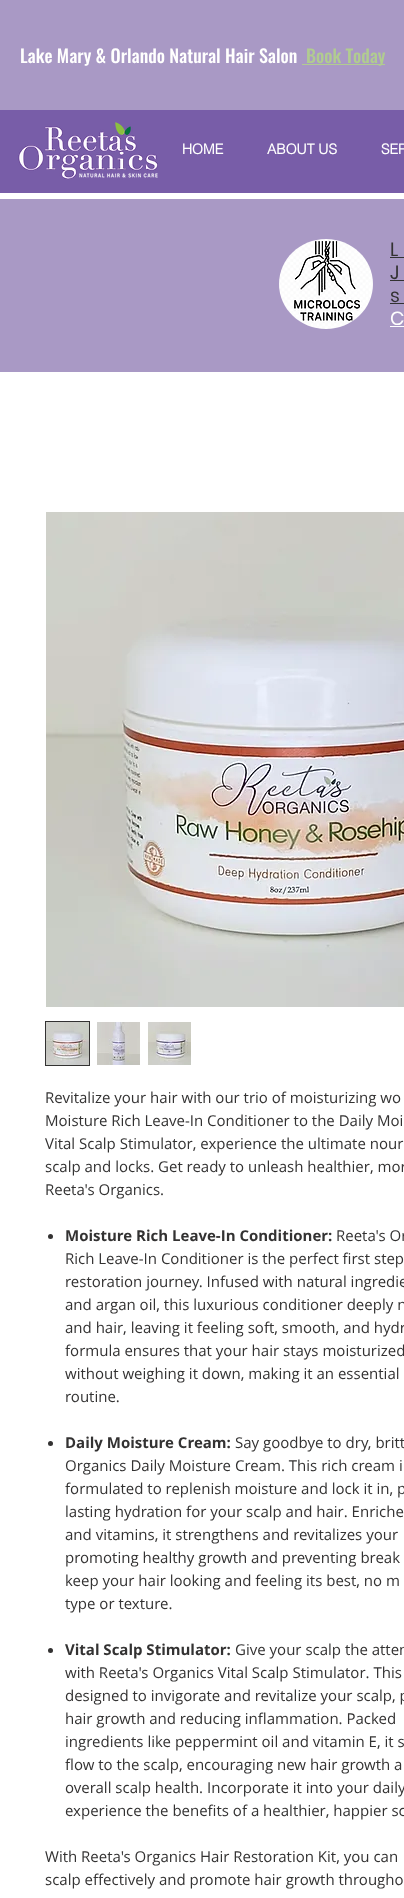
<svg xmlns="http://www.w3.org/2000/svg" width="404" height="1898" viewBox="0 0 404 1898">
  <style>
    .t1 { font: 500 18px Oswald; fill: #fffffe; }
    .t2 { font: 500 18px Oswald; fill: #b1cc90; }
    .t3 { font: bold 14px helvetica; fill: #fffffe; }
    .t4 { font: 19px Poppins; fill: #333232; }
    .t5 { font: 19px Poppins; fill: #fffffe; }
    .t6 { font: 15px Open Sans; fill: #333232; }
    .t7 { font: bold 15px Open Sans; fill: #333232; }
  </style>
  <rect width="100%" height="100%" fill="#fff"/>
  <rect x="0" y="0" width="404" height="110" fill="#a999c5"/>
  <text x="20" y="63" class="t1">Lake Mary &amp; Orlando Natural Hair Salon</text>
  <rect x="302" y="64" width="83" height="1" fill="#b1cc90"/>
  <text x="306" y="63" class="t2">Book Today</text>
  <rect x="0" y="110" width="404" height="83" fill="#785da8"/>
  <image x="18" y="122" width="140" height="58" href="images/1.png"/>
  <text x="182" y="154" class="t3">HOME</text>
  <text x="267" y="154" class="t3">ABOUT US</text>
  <text x="381" y="154" class="t3">SER</text>
  <rect x="0" y="199" width="404" height="173" fill="#a999c5"/>
  <image x="279" y="239" width="94" height="90" href="images/2.png"/>
  <text x="390" y="256" class="t4">L</text>
  <rect x="390" y="257" width="14" height="1" fill="#333232"/>
  <text x="390" y="279" class="t4">J</text>
  <rect x="390" y="280" width="14" height="1" fill="#333232"/>
  <text x="390" y="302" class="t4">s</text>
  <rect x="390" y="303" width="14" height="1" fill="#333232"/>
  <text x="390" y="325" class="t5">C</text>
  <rect x="390" y="326" width="14" height="1" fill="#fff"/>
  <image x="46" y="512" width="358" height="495" href="images/3.png"/>
  <rect x="45.5" y="1021.5" width="44" height="44" fill="none" stroke="#333232"/>
  <image x="46" y="1022" width="43" height="43" href="images/4.png"/>
  <image x="97" y="1022" width="43" height="43" href="images/5.png"/>
  <image x="148" y="1022" width="43" height="43" href="images/6.png"/>
  <text x="45" y="1103" class="t6">Revitalize your hair with our trio of moisturizing wo</text>
  <text x="45" y="1126" class="t6">Moisture Rich Leave-In Conditioner to the Daily Moi</text>
  <text x="45" y="1149" class="t6">Vital Scalp Stimulator, experience the ultimate nour</text>
  <text x="45" y="1172" class="t6">scalp and locks. Get ready to unleash healthier, mor</text>
  <text x="45" y="1195" class="t6">Reeta's Organics.</text>
  <circle cx="50.5" cy="1236.5" r="2.5" fill="#333232"/>
  <text x="65" y="1241" class="t7">Moisture Rich Leave-In Conditioner:</text>
  <text x="336" y="1241" class="t6">Reeta's Or</text>
  <text x="65" y="1264" class="t6">Rich Leave-In Conditioner is the perfect first step</text>
  <text x="65" y="1287" class="t6">restoration journey. Infused with natural ingredie</text>
  <text x="65" y="1310" class="t6">and argan oil, this luxurious conditioner deeply n</text>
  <text x="65" y="1333" class="t6">and hair, leaving it feeling soft, smooth, and hydr</text>
  <text x="65" y="1356" class="t6">formula ensures that your hair stays moisturized</text>
  <text x="65" y="1379" class="t6">without weighing it down, making it an essential</text>
  <text x="65" y="1402" class="t6">routine.</text>
  <circle cx="50.5" cy="1443.5" r="2.5" fill="#333232"/>
  <text x="65" y="1448" class="t7">Daily Moisture Cream:</text>
  <text x="235" y="1448" class="t6">Say goodbye to dry, britt</text>
  <text x="65" y="1471" class="t6">Organics Daily Moisture Cream. This rich cream i</text>
  <text x="65" y="1494" class="t6">formulated to replenish moisture and lock it in, p</text>
  <text x="65" y="1517" class="t6">lasting hydration for your scalp and hair. Enriche</text>
  <text x="65" y="1540" class="t6">and vitamins, it strengthens and revitalizes your</text>
  <text x="65" y="1563" class="t6">promoting healthy growth and preventing break</text>
  <text x="65" y="1586" class="t6">keep your hair looking and feeling its best, no m</text>
  <text x="65" y="1609" class="t6">type or texture.</text>
  <circle cx="50.5" cy="1650.5" r="2.5" fill="#333232"/>
  <text x="65" y="1655" class="t7">Vital Scalp Stimulator:</text>
  <text x="235" y="1655" class="t6">Give your scalp the atten</text>
  <text x="65" y="1678" class="t6">with Reeta's Organics Vital Scalp Stimulator. This</text>
  <text x="65" y="1701" class="t6">designed to invigorate and revitalize your scalp, p</text>
  <text x="65" y="1724" class="t6">hair growth and reducing inflammation. Packed</text>
  <text x="65" y="1747" class="t6">ingredients like peppermint oil and vitamin E, it s</text>
  <text x="65" y="1770" class="t6">flow to the scalp, encouraging new hair growth a</text>
  <text x="65" y="1793" class="t6">overall scalp health. Incorporate it into your daily</text>
  <text x="65" y="1816" class="t6">experience the benefits of a healthier, happier sc</text>
  <text x="45" y="1862" class="t6">With Reeta's Organics Hair Restoration Kit, you can</text>
  <text x="45" y="1885" class="t6">scalp effectively and promote hair growth througho</text>
</svg>
